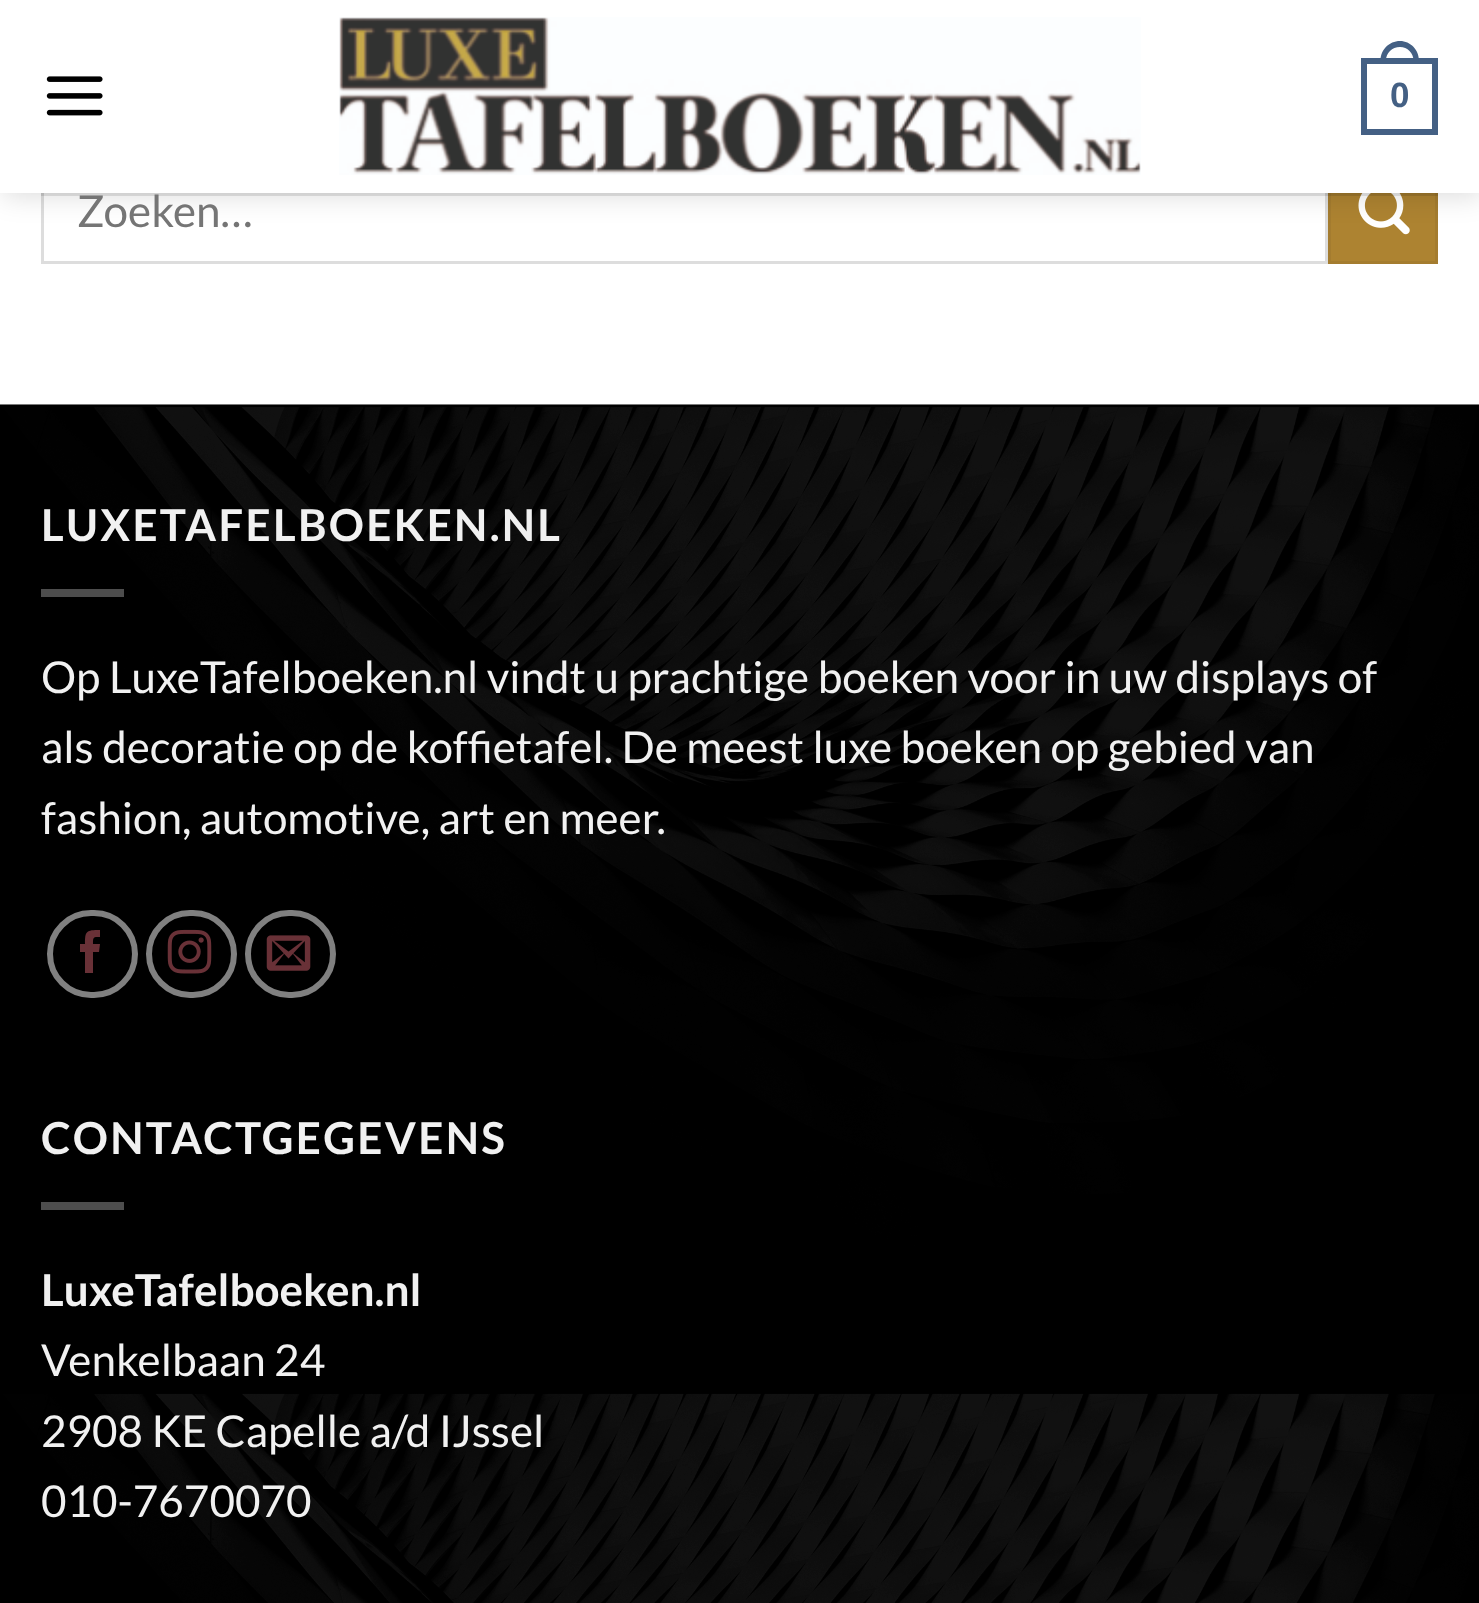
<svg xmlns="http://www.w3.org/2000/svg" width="1479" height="1603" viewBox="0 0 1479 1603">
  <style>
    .t1 { font: bold 35px Liberation Sans; fill: #446084; }
    .t2 { font: 44px Lato; fill: #757575; }
    .t3 { font: bold 44px Lato; letter-spacing: 2.25px; fill: #f1f1f1; }
    .t4 { font: 44px Lato; fill: #f1f1f1; }
    .t5 { font: bold 44px Lato; fill: #f1f1f1; }
  </style>
  <rect width="100%" height="100%" fill="#fff"/>
  <rect x="42.5" y="155.5" width="1284" height="107" fill="none" stroke="#ddd" stroke-width="3"/>
  <rect x="1331" y="193" width="104" height="68" fill="#ad8331"/>
  <rect x="1329.5" y="155.5" width="107" height="107" fill="none" stroke="#a47c2f" stroke-width="3"/>
  <image x="1358" y="193" width="52" height="42" href="images/3.png"/>
  <rect x="3" y="3" width="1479" height="192" fill="#00000026" filter="blur(14px)"/>
  <rect x="0" y="0" width="1479" height="193" fill="#fff"/>
  <image x="46" y="76" width="57" height="40" href="images/1.png"/>
  <image x="339" y="17" width="802" height="158" href="images/2.png"/>
  <rect x="1364" y="61" width="71" height="71" fill="none" stroke="#446084" stroke-width="6"/>
  <path d="M1400 41C1410.5 41 1419 50 1419 60.5V63H1380.5V60.5C1380.5 50 1389 41 1400 41ZM1400 47C1407.5 47 1413.5 53 1413.5 60.5V63H1386V60.5C1386 53 1392 47 1400 47Z" fill="#446084" fill-rule="evenodd"/>
  <text x="1390" y="107" class="t1">0</text>
  <rect x="41" y="193" width="1397" height="3" fill="#0000001a"/>
  <text x="77" y="227" class="t2">Zoeken…</text>
  <image x="0" y="404" width="1479" height="1199" href="images/4.png"/>
  <rect x="0" y="404" width="1479" height="1" fill="#0000000d"/>
  <text x="41" y="541" class="t3">LUXETAFELBOEKEN.NL</text>
  <rect x="41" y="589" width="83" height="8" fill="#4d4d4d"/>
  <text x="41" y="693" class="t4">Op LuxeTafelboeken.nl vindt u prachtige boeken voor in uw displays of</text>
  <text x="41" y="763" class="t4">als decoratie op de koffietafel. De meest luxe boeken op gebied van</text>
  <text x="41" y="834" class="t4">fashion, automotive, art en meer.</text>
  <rect x="50" y="913" width="85" height="82" rx="41" fill="none" stroke="#808080" stroke-width="6"/>
  <path d="M93 973H85V952H80V944H85C85 931 86 930 100 930V937C93 937 93 937 93 944H100L99 952H93Z" fill="#693137"/>
  <rect x="149" y="913" width="85" height="82" rx="41" fill="none" stroke="#808080" stroke-width="6"/>
  <image x="167" y="929" width="45" height="45" href="images/5.png"/>
  <rect x="248" y="913" width="85" height="82" rx="41" fill="none" stroke="#808080" stroke-width="6"/>
  <image x="266" y="935" width="45" height="36" href="images/6.png"/>
  <text x="41" y="1154" class="t3">CONTACTGEGEVENS</text>
  <rect x="41" y="1202" width="83" height="8" fill="#4d4d4d"/>
  <text x="41" y="1306" class="t5">LuxeTafelboeken.nl</text>
  <text x="41" y="1376" class="t4">Venkelbaan 24</text>
  <text x="41" y="1447" class="t4">2908 KE Capelle a/d IJssel</text>
  <text x="41" y="1517" class="t4">010-7670070</text>
</svg>
